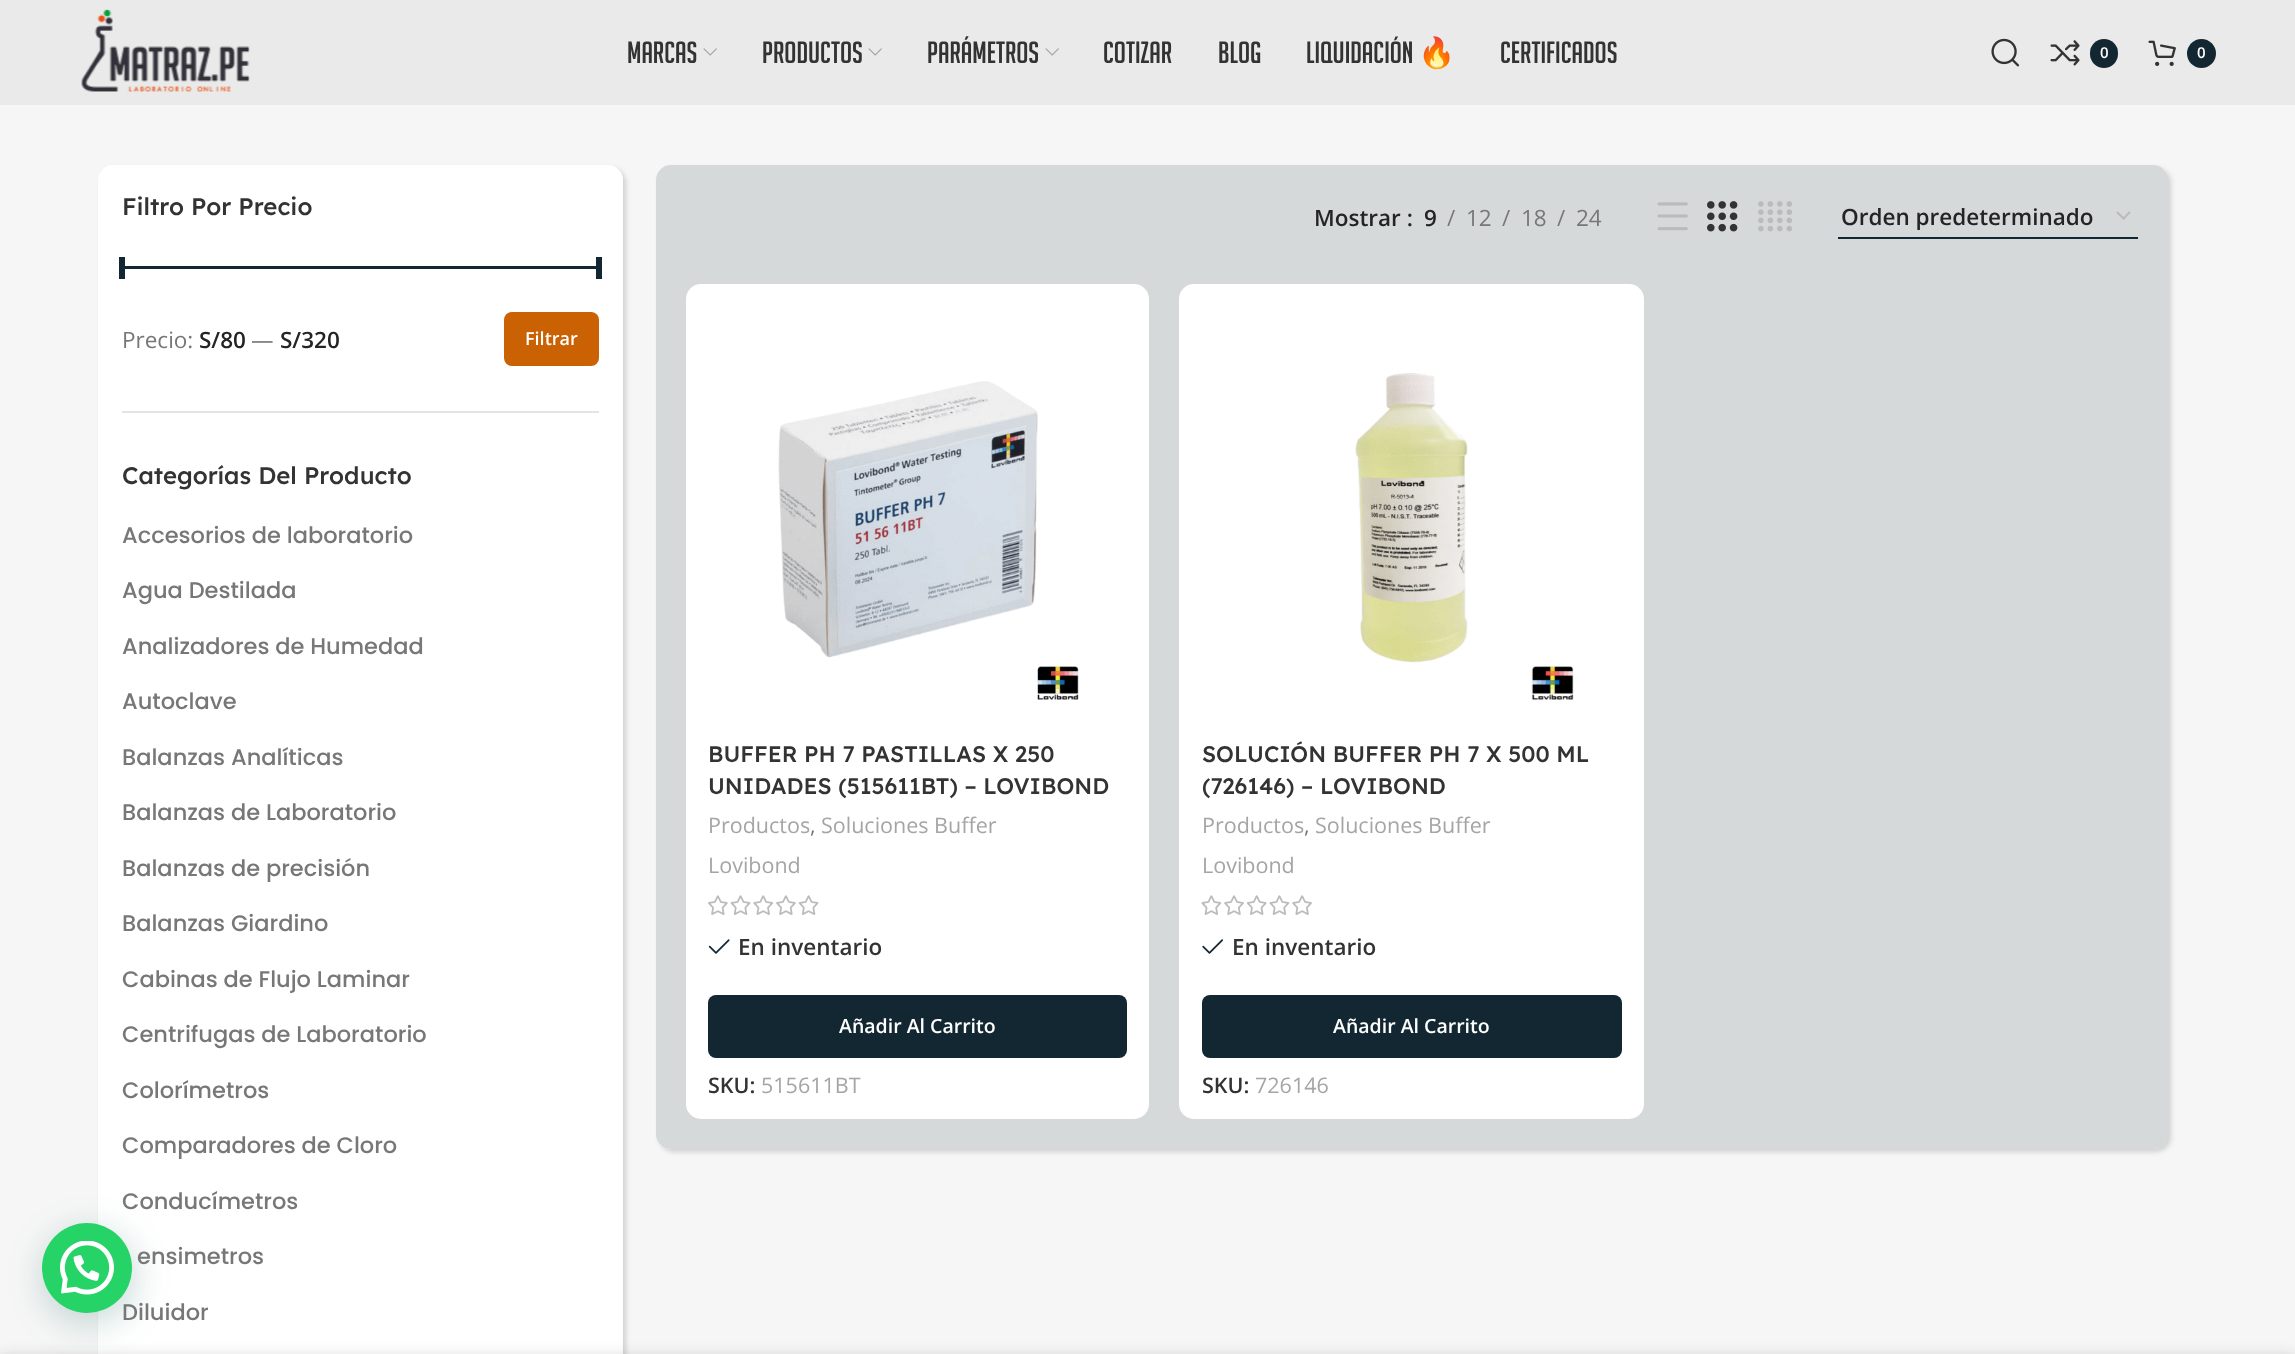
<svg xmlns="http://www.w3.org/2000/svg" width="2295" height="1354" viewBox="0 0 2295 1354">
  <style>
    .t1 { font: 500 22.5px Poppins; fill: #777; }
    .t2 { font: 30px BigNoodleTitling; fill: #333; }
    .t3 { font: 30px Noto Color Emoji; fill: #333; }
    .t4 { font: 600 15px Open Sans; fill: #fff; }
    .t5 { font: 500 24px Lexend Deca; fill: #333; }
    .t6 { font: 22.5px Open Sans; fill: #777; }
    .t7 { font: 600 22.5px Open Sans; fill: #242424; }
    .t8 { font: 600 18px Open Sans; fill: #fff; }
    .t9 { font: 500 22.5px Lexend Deca; fill: #333; }
    .t10 { font: 21.5px Open Sans; fill: #a5a5a5; }
    .t11 { font: 21.5px Open Sans; fill: #777; }
    .t12 { font: 600 22.5px Open Sans; fill: #333; }
    .t13 { font: 600 19.5px Open Sans; fill: #fff; }
    .t14 { font: 600 21.5px Open Sans; fill: #333; }
  </style>
  <defs>
    <clipPath id="clip1"><path d="M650 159H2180V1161H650ZM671 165H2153C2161.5 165 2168 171.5 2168 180V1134C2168 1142.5 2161.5 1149 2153 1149H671C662.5 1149 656 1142.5 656 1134V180C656 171.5 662.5 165 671 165Z" clip-rule="evenodd"/></clipPath>
    <clipPath id="clip2"><rect x="1841" y="203" width="267" height="27"/></clipPath>
  </defs>
  <rect width="100%" height="100%" fill="#f6f6f6"/>
  <rect x="101" y="168" width="525" height="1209" rx="15" fill="#00000026" filter="blur(2.5px)"/>
  <rect x="98" y="165" width="525" height="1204" rx="15" fill="#fff"/>
  <rect x="44" y="1232" width="90" height="90" rx="45" fill="#075e543d" filter="blur(18px)"/>
  <text x="122" y="1320" class="t1">Diluidor</text>
  <circle cx="87" cy="1268" r="45" fill="#25d366"/>
  <image x="60" y="1241" width="54" height="54" href="images/1.png"/>
  <rect x="0" y="0" width="2295" height="105" fill="#eaeaea"/>
  <image x="81" y="9" width="169" height="83" href="images/2.png"/>
  <text x="627" y="63" class="t2">marcas</text>
  <image x="703" y="48" width="14" height="8" href="images/3.png"/>
  <text x="762" y="63" class="t2">productos</text>
  <image x="868" y="48" width="14" height="8" href="images/3.png"/>
  <text x="927" y="63" class="t2">parámetros</text>
  <image x="1045" y="48" width="14" height="8" href="images/3.png"/>
  <text x="1103" y="63" class="t2">cotizar</text>
  <text x="1218" y="63" class="t2">blog</text>
  <text x="1306" y="63" class="t2">liquidación</text>
  <text x="1418" y="63" class="t3">🔥</text>
  <text x="1500" y="63" class="t2">certificados</text>
  <image x="1991" y="38" width="29" height="29" href="images/4.png"/>
  <image x="2050" y="40" width="30" height="26" href="images/5.png"/>
  <rect x="2090" y="39" width="28" height="29" rx="14" fill="#132732"/>
  <text x="2100" y="58" class="t4">0</text>
  <image x="2148" y="40" width="28" height="26" href="images/6.png"/>
  <circle cx="2201.5" cy="53.5" r="14.5" fill="#132732"/>
  <text x="2197" y="58" class="t4">0</text>
  <rect x="122" y="411" width="477" height="2" fill="#e4e4e4"/>
  <text x="122" y="215" class="t5">Filtro Por Precio</text>
  <rect x="122" y="266" width="477" height="3" fill="#132732"/>
  <rect x="119" y="257" width="6" height="22" fill="#132732"/>
  <rect x="596" y="257" width="6" height="22" fill="#132732"/>
  <text x="122" y="348" class="t6">Precio:</text>
  <text x="199" y="348" class="t7">S/80</text>
  <text x="251" y="348" class="t6">—</text>
  <text x="280" y="348" class="t7">S/320</text>
  <rect x="504" y="312" width="95" height="54" rx="8" fill="#ca6103"/>
  <text x="525" y="345" class="t8">Filtrar</text>
  <text x="122" y="484" class="t5">Categorías Del Producto</text>
  <text x="122" y="543" class="t1">Accesorios de laboratorio</text>
  <text x="122" y="598" class="t1">Agua Destilada</text>
  <text x="122" y="654" class="t1">Analizadores de Humedad</text>
  <text x="122" y="709" class="t1">Autoclave</text>
  <text x="122" y="765" class="t1">Balanzas Analíticas</text>
  <text x="122" y="820" class="t1">Balanzas de Laboratorio</text>
  <text x="122" y="876" class="t1">Balanzas de precisión</text>
  <text x="122" y="931" class="t1">Balanzas Giardino</text>
  <text x="122" y="987" class="t1">Cabinas de Flujo Laminar</text>
  <text x="122" y="1042" class="t1">Centrifugas de Laboratorio</text>
  <text x="122" y="1098" class="t1">Colorímetros</text>
  <text x="122" y="1153" class="t1">Comparadores de Cloro</text>
  <text x="122" y="1209" class="t1">Conducímetros</text>
  <text x="137" y="1264" class="t1">ensimetros</text>
  <g clip-path="url(#clip1)">
    <rect x="659" y="168" width="1512" height="984" rx="15" fill="#00000026" filter="blur(2.5px)"/>
  </g>
  <rect x="656" y="165" width="1512" height="984" rx="15" fill="#13273224"/>
  <text x="1314" y="226" class="t7">Mostrar :</text>
  <text x="1424" y="226" class="t7">9</text>
  <text x="1447" y="226" class="t6">/</text>
  <text x="1466" y="226" class="t6">12</text>
  <text x="1502" y="226" class="t6">/</text>
  <text x="1521" y="226" class="t6">18</text>
  <text x="1557" y="226" class="t6">/</text>
  <text x="1576" y="226" class="t6">24</text>
  <image x="1657" y="202" width="31" height="29" href="images/7.png"/>
  <image x="1707" y="201" width="31" height="31" href="images/8.png"/>
  <image x="1758" y="201" width="34" height="31" href="images/9.png"/>
  <path d="M2117 212L2123.5 218.5L2130 212" fill="none" stroke="#bbb" stroke-width="2.2"/>
  <rect x="1838" y="237" width="300" height="2" fill="#132732"/>
  <g clip-path="url(#clip2)">
    <text x="1841" y="225" class="t7">Orden predeterminado</text>
  </g>
  <rect x="686" y="284" width="463" height="835" rx="15" fill="#fff"/>
  <image x="778" y="381" width="301" height="319" href="images/10.png"/>
  <text x="708" y="762" class="t9">BUFFER PH 7 PASTILLAS X 250</text>
  <text x="708" y="794" class="t9">UNIDADES (515611BT) – LOVIBOND</text>
  <text x="708" y="833" class="t10">Productos</text>
  <text x="810" y="833" class="t11">,</text>
  <text x="821" y="833" class="t10">Soluciones Buffer</text>
  <text x="708" y="873" class="t10">Lovibond</text>
  <image x="708" y="895" width="111" height="20" href="images/11.png"/>
  <image x="708" y="939" width="22" height="15" href="images/12.png"/>
  <text x="738" y="955" class="t12">En inventario</text>
  <rect x="708" y="995" width="419" height="63" rx="8" fill="#132732"/>
  <text x="839" y="1033" class="t13">Añadir Al Carrito</text>
  <text x="708" y="1093" class="t14">SKU:</text>
  <text x="761" y="1093" class="t10">515611BT</text>
  <rect x="1179" y="284" width="465" height="835" rx="15" fill="#fff"/>
  <image x="1355" y="373" width="219" height="328" href="images/13.png"/>
  <text x="1202" y="762" class="t9">SOLUCIÓN BUFFER PH 7 X 500 ML</text>
  <text x="1202" y="794" class="t9">(726146) – LOVIBOND</text>
  <text x="1202" y="833" class="t10">Productos</text>
  <text x="1304" y="833" class="t11">,</text>
  <text x="1315" y="833" class="t10">Soluciones Buffer</text>
  <text x="1202" y="873" class="t10">Lovibond</text>
  <image x="1201" y="895" width="111" height="20" href="images/14.png"/>
  <image x="1202" y="939" width="21" height="15" href="images/15.png"/>
  <text x="1232" y="955" class="t12">En inventario</text>
  <rect x="1202" y="995" width="420" height="63" rx="8" fill="#132732"/>
  <text x="1333" y="1033" class="t13">Añadir Al Carrito</text>
  <text x="1202" y="1093" class="t14">SKU:</text>
  <text x="1255" y="1093" class="t10">726146</text>
  <rect x="0" y="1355" width="2295" height="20" fill="#00000024" filter="blur(7px)"/>
</svg>
